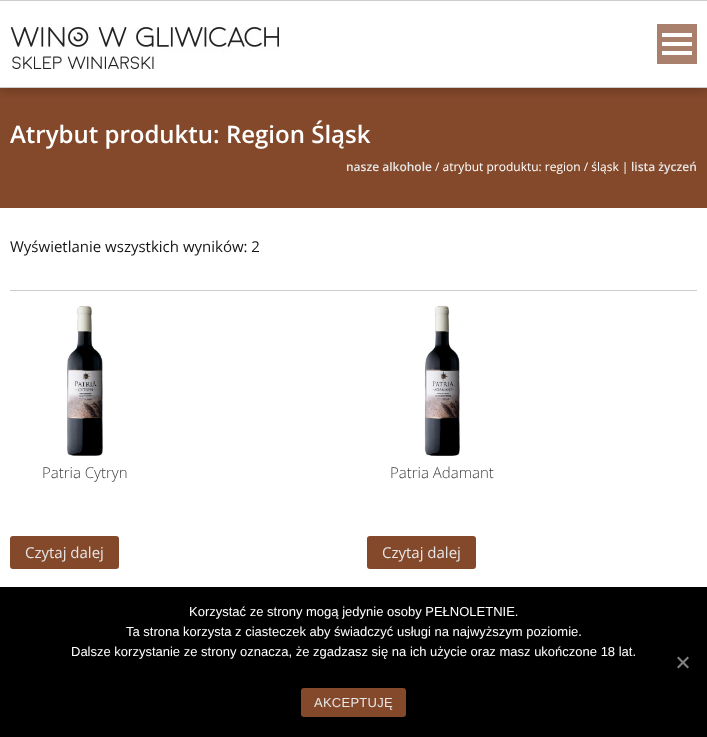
<svg xmlns="http://www.w3.org/2000/svg" width="707" height="737" viewBox="0 0 707 737">
  <style>
    .t1 { font: 600 24px Open Sans; fill: #fff; }
    .t2 { font: 600 12px Open Sans; fill: #e6e6e6; }
    .t3 { font: 12px Open Sans; fill: #fff; }
    .t4 { font: 15px Open Sans; fill: #141414; }
    .t5 { font: 300 15px Open Sans; fill: #3d3d3d; }
    .t6 { font: 15px Open Sans; fill: #e6e6e6; }
    .t7 { font: 13px Liberation Sans; fill: #fff; }
    .t8 { font: 13px Liberation Sans; letter-spacing: 0.25px; fill: #e6e6e6; }
  </style>
  <defs>
    <clipPath id="clip1"><rect x="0" y="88" width="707" height="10"/></clipPath>
  </defs>
  <rect width="100%" height="100%" fill="#fff"/>
  <rect x="0" y="88" width="707" height="120" fill="#84492b"/>
  <g clip-path="url(#clip1)">
    <rect x="0" y="0" width="707" height="88" fill="#0000004d" filter="blur(6.5px)"/>
  </g>
  <rect x="0" y="0" width="707" height="1" fill="#cdcdcd"/>
  <rect x="0" y="87" width="707" height="1" fill="#cdcdcd"/>
  <image x="10" y="27" width="269" height="42" href="images/1.png"/>
  <rect x="657" y="24" width="40" height="40" fill="#a9806b"/>
  <rect x="662" y="33" width="30" height="4" fill="#fff"/>
  <rect x="662" y="42" width="30" height="4" fill="#fff"/>
  <rect x="662" y="51" width="30" height="4" fill="#fff"/>
  <text x="10" y="143" class="t1">Atrybut produktu: Region Śląsk</text>
  <text x="346" y="171" class="t2">nasze alkohole</text>
  <text x="435" y="171" class="t3">/ atrybut produktu: region / śląsk |</text>
  <text x="631" y="171" class="t2">lista życzeń</text>
  <text x="10" y="252" class="t4">Wyświetlanie wszystkich wyników: 2</text>
  <rect x="10" y="290" width="687" height="1" fill="#ccc"/>
  <image x="67" y="305" width="36" height="151" href="images/2.png"/>
  <text x="42" y="478" class="t5">Patria Cytryn</text>
  <rect x="10" y="536" width="109" height="33" rx="3" fill="#84492b"/>
  <text x="25" y="558" class="t6">Czytaj dalej</text>
  <image x="424" y="305" width="36" height="151" href="images/3.png"/>
  <text x="390" y="478" class="t5">Patria Adamant</text>
  <rect x="367" y="536" width="109" height="33" rx="3" fill="#84492b"/>
  <text x="382" y="558" class="t6">Czytaj dalej</text>
  <rect x="0" y="587" width="707" height="150" fill="#000"/>
  <text x="189" y="616" class="t7">Korzystać ze strony mogą jedynie osoby PEŁNOLETNIE.</text>
  <text x="126" y="636" class="t7">Ta strona korzysta z ciasteczek aby świadczyć usługi na najwyższym poziomie.</text>
  <text x="71" y="656" class="t7">Dalsze korzystanie ze strony oznacza, że zgadzasz się na ich użycie oraz masz ukończone 18 lat.</text>
  <path d="M687.5 656.5L689 658L678.5 668.5L677 667Z" fill="#808080"/>
  <path d="M677 658L678.5 656.5L689 667L687.5 668.5Z" fill="#808080"/>
  <rect x="301" y="688" width="105" height="29" rx="3" fill="#84492b"/>
  <text x="314" y="707" class="t8">AKCEPTUJĘ</text>
</svg>
